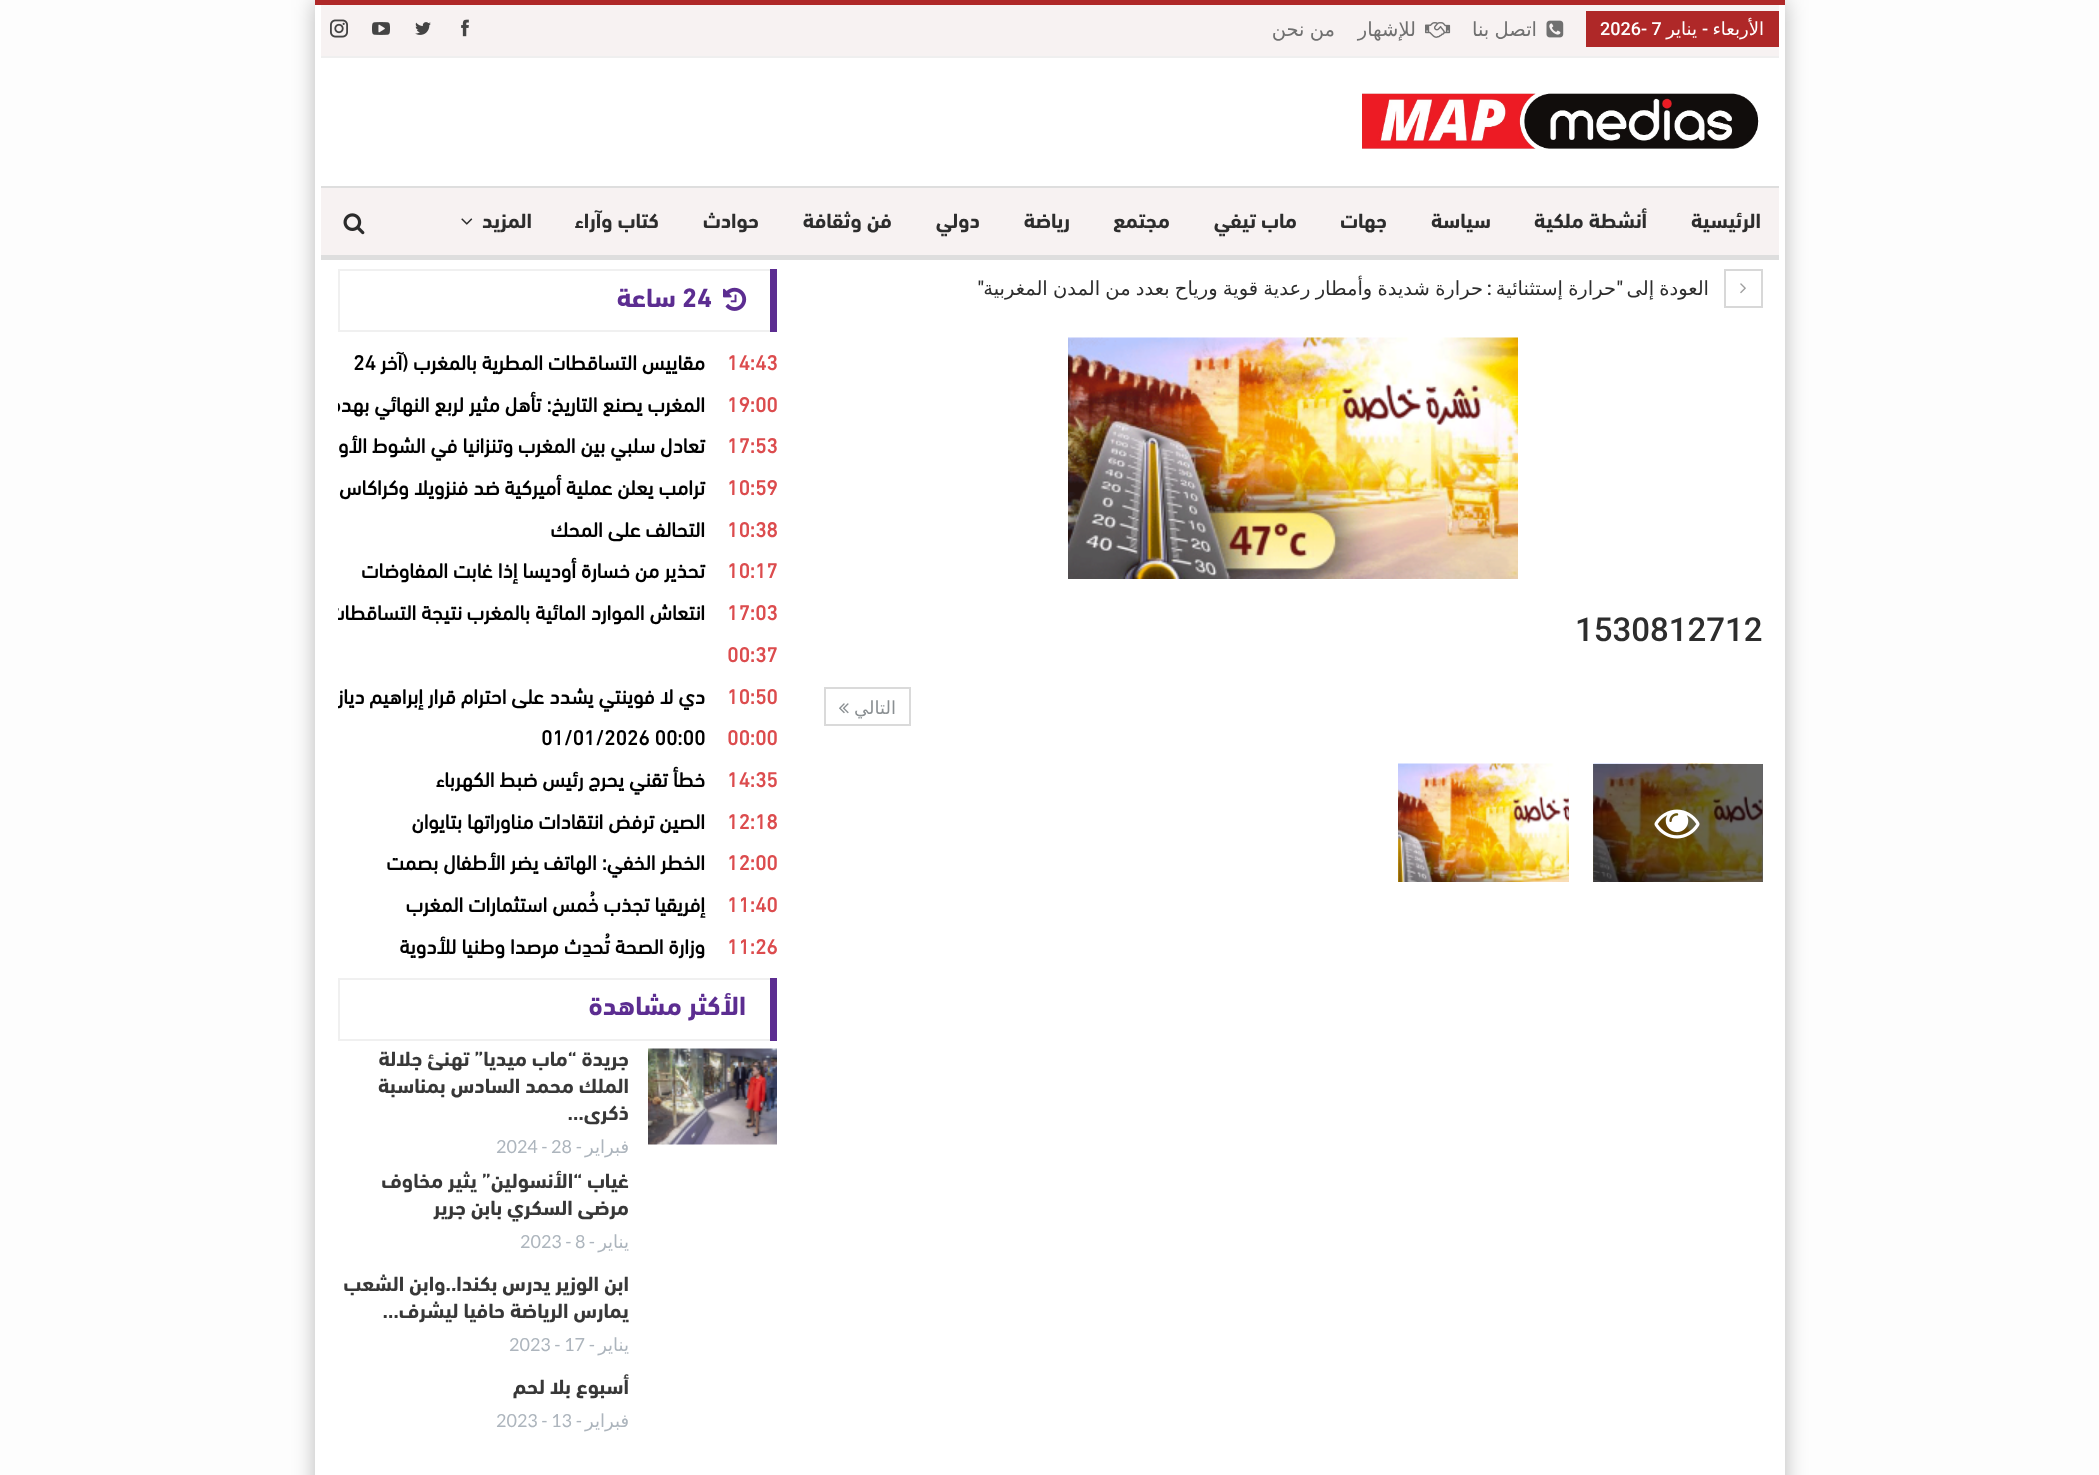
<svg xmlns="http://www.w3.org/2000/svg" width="2099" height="1475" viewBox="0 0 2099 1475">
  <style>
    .t1 { font: 18px DejaVu Sans; direction: rtl; fill: #fff; }
    .t2 { font: 500 18px Roboto; direction: rtl; fill: #fff; }
    .t3 { font: 500 18px Roboto; fill: #fff; }
    .t4 { font: 19.5px DejaVu Sans; direction: rtl; fill: #707070; }
    .t5 { font: bold 21px 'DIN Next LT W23'; direction: rtl; fill: #2d2d2d; }
    .t6 { font: 19.5px DejaVu Sans; direction: rtl; fill: #2d2d2d; }
    .t7 { font: 500 19.5px Roboto; direction: rtl; fill: #2d2d2d; }
    .t8 { font: 500 33px Roboto; fill: #2d2d2d; }
    .t9 { font: 18px DejaVu Sans; direction: rtl; fill: #8a8f92; }
    .t10 { font: bold 27px 'DIN Next LT W23'; fill: #5c2d91; }
    .t11 { font: bold 27px 'DIN Next LT W23'; direction: rtl; fill: #5c2d91; }
    .t12 { font: bold 21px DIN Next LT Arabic; fill: #dc4c4e; }
    .t13 { font: bold 21px DIN Next LT Arabic; direction: rtl; fill: #000; }
    .t14 { font: bold 21px DIN Next LT Arabic; fill: #000; }
    .t15 { font: bold 21px 'DIN Next LT W23'; direction: rtl; fill: #383838; }
    .t16 { font: 18px DejaVu Sans; direction: rtl; fill: #adb5bd; }
    .t17 { font: 18px Lato; direction: rtl; fill: #adb5bd; }
    .t18 { font: 18px Lato; fill: #adb5bd; }
  </style>
  <defs>
    <clipPath id="clip1"><rect x="338" y="381" width="439" height="42"/></clipPath>
    <clipPath id="clip2"><rect x="338" y="423" width="439" height="42"/></clipPath>
    <clipPath id="clip3"><rect x="338" y="465" width="439" height="42"/></clipPath>
    <clipPath id="clip4"><rect x="338" y="590" width="439" height="42"/></clipPath>
    <clipPath id="clip5"><rect x="338" y="674" width="439" height="42"/></clipPath>
  </defs>
  <rect width="100%" height="100%" fill="#fdfdfd"/>
  <rect x="315" y="0" width="1470" height="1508" fill="#00000045" filter="blur(11px)"/>
  <rect x="315" y="5" width="1470" height="1470" fill="#fff"/>
  <rect x="1762" y="764" width="1" height="118" fill="#666"/>
  <rect x="315" y="0" width="1470" height="5" fill="#af2828"/>
  <rect x="321" y="5" width="1458" height="51" fill="#f7f2f2"/>
  <rect x="321" y="56" width="1458" height="2" fill="#efefef"/>
  <rect x="1586" y="11" width="193" height="36" fill="#af2828"/>
  <text x="1764" y="35" class="t1">الأربعاء</text>
  <text x="1708" y="35" class="t2">-</text>
  <text x="1697" y="35" class="t1">يناير</text>
  <text x="1600" y="35" class="t3">2026- 7</text>
  <image x="1546" y="20" width="18" height="18" href="images/1.png"/>
  <text x="1537" y="36" word-spacing="-1" class="t4">اتصل بنا</text>
  <image x="1425" y="22" width="26" height="16" href="images/2.png"/>
  <text x="1416" y="36" class="t4">للإشهار</text>
  <text x="1335" y="36" word-spacing="-1" class="t4">من نحن</text>
  <image x="461" y="19" width="8" height="18" href="images/3.png"/>
  <image x="415" y="22" width="16" height="13" href="images/4.png"/>
  <image x="372" y="22" width="18" height="13" href="images/5.png"/>
  <image x="330" y="19" width="18" height="19" href="images/6.png"/>
  <image x="1362" y="93" width="397" height="56" href="images/7.png"/>
  <rect x="321" y="188" width="1458" height="67" fill="#f7f2f2"/>
  <rect x="321" y="186" width="1458" height="2" fill="#dedede"/>
  <rect x="321" y="255" width="1458" height="5" fill="#dedede"/>
  <text x="1761" y="228" class="t5">الرئيسية</text>
  <text x="1647" y="228" class="t5">أنشطة ملكية</text>
  <text x="1491" y="228" class="t5">سياسة</text>
  <text x="1387" y="228" class="t5">جهات</text>
  <text x="1297" y="228" class="t5">ماب تيفي</text>
  <text x="1170" y="228" class="t5">مجتمع</text>
  <text x="1070" y="228" class="t5">رياضة</text>
  <text x="980" y="228" class="t5">دولي</text>
  <text x="892" y="228" class="t5">فن وثقافة</text>
  <text x="759" y="228" class="t5">حوادث</text>
  <text x="659" y="228" class="t5">كتاب وآراء</text>
  <text x="532" y="228" class="t5">المزيد</text>
  <image x="461" y="218" width="12" height="7" href="images/8.png"/>
  <image x="343" y="213" width="22" height="22" href="images/9.png"/>
  <rect x="1725" y="270" width="37" height="37" fill="none" stroke="#d8d8d8" stroke-width="2"/>
  <image x="1740" y="283" width="6" height="11" href="images/10.png"/>
  <text x="1709" y="295" word-spacing="-1" class="t6">العودة إلى</text>
  <text x="1623" y="295" class="t7">"</text>
  <text x="1616" y="295" word-spacing="-1" class="t6">حرارة إستثنائية</text>
  <text x="1483" y="295" word-spacing="-1" class="t6">حرارة شديدة وأمطار رعدية قوية ورياح بعدد من المدن المغربية</text>
  <text x="984" y="295" class="t7">"</text>
  <text x="1492" y="295" class="t7">:</text>
  <image x="1068" y="337" width="450" height="242" href="images/11.png"/>
  <text x="1575" y="641" class="t8">1530812712</text>
  <rect x="825" y="688" width="85" height="37" fill="none" stroke="#dadada" stroke-width="2"/>
  <text x="896" y="714" class="t9">التالي</text>
  <image x="839" y="703" width="10" height="11" href="images/12.png"/>
  <image x="1593" y="763" width="170" height="119" href="images/13.png"/>
  <image x="1654" y="809" width="46" height="30" href="images/14.png"/>
  <image x="1398" y="763" width="171" height="119" href="images/15.png"/>
  <rect x="339" y="270" width="437" height="61" fill="none" stroke="#f0f0f0" stroke-width="2"/>
  <rect x="770" y="269" width="7" height="63" fill="#5c2d91"/>
  <image x="723" y="287" width="24" height="24" href="images/16.png"/>
  <text x="682" y="307" class="t10">24</text>
  <text x="676" y="307" class="t11">ساعة</text>
  <text x="727" y="370" class="t12">14:43</text>
  <text x="705" y="370" class="t13">مقاييس التساقطات المطرية بالمغرب (آخر</text>
  <text x="353" y="370" class="t14">24</text>
  <text x="727" y="412" class="t12">19:00</text>
  <g clip-path="url(#clip1)">
    <text x="705" y="412" class="t13">المغرب يصنع التاريخ: تأهل مثير لربع النهائي بهدف حاسم</text>
  </g>
  <text x="727" y="453" class="t12">17:53</text>
  <g clip-path="url(#clip2)">
    <text x="705" y="453" class="t13">تعادل سلبي بين المغرب وتنزانيا في الشوط الأول</text>
  </g>
  <text x="727" y="495" class="t12">10:59</text>
  <g clip-path="url(#clip3)">
    <text x="705" y="495" class="t13">ترامب يعلن عملية أميركية ضد فنزويلا وكراكاس تنفي</text>
  </g>
  <text x="727" y="537" class="t12">10:38</text>
  <text x="705" y="537" class="t13">التحالف على المحك</text>
  <text x="727" y="578" class="t12">10:17</text>
  <text x="705" y="578" class="t13">تحذير من خسارة أوديسا إذا غابت المفاوضات</text>
  <text x="727" y="620" class="t12">17:03</text>
  <g clip-path="url(#clip4)">
    <text x="705" y="620" class="t13">انتعاش الموارد المائية بالمغرب نتيجة التساقطات</text>
  </g>
  <text x="727" y="662" class="t12">00:37</text>
  <text x="727" y="704" class="t12">10:50</text>
  <g clip-path="url(#clip5)">
    <text x="705" y="704" class="t13">دي لا فوينتي يشدد على احترام قرار إبراهيم دياز الدولي</text>
  </g>
  <text x="727" y="745" class="t12">00:00</text>
  <text x="541" y="745" class="t14">01/01/2026 00:00</text>
  <text x="727" y="787" class="t12">14:35</text>
  <text x="705" y="787" class="t13">خطأ تقني يحرج رئيس ضبط الكهرباء</text>
  <text x="727" y="829" class="t12">12:18</text>
  <text x="705" y="829" class="t13">الصين ترفض انتقادات مناوراتها بتايوان</text>
  <text x="727" y="870" class="t12">12:00</text>
  <text x="705" y="870" class="t13">الخطر الخفي: الهاتف يضر الأطفال بصمت</text>
  <text x="727" y="912" class="t12">11:40</text>
  <text x="705" y="912" class="t13">إفريقيا تجذب خُمس استثمارات المغرب</text>
  <text x="727" y="954" class="t12">11:26</text>
  <text x="705" y="954" class="t13">وزارة الصحة تُحدِث مرصدا وطنيا للأدوية</text>
  <rect x="339" y="979" width="437" height="61" fill="none" stroke="#f0f0f0" stroke-width="2"/>
  <rect x="770" y="978" width="7" height="63" fill="#5c2d91"/>
  <text x="746" y="1015" class="t11">الأكثر مشاهدة</text>
  <image x="648" y="1048" width="129" height="97" href="images/17.png"/>
  <text x="629" y="1066" class="t15">جريدة “ماب ميديا” تهنئ جلالة</text>
  <text x="629" y="1093" class="t15">الملك محمد السادس بمناسبة</text>
  <text x="629" y="1120" class="t15">ذكرى…</text>
  <text x="629" y="1153" class="t16">فبراير</text>
  <text x="582" y="1153" class="t17">-</text>
  <text x="496" y="1153" class="t18">2024 - 28</text>
  <text x="629" y="1188" class="t15">غياب “الأنسولين” يثير مخاوف</text>
  <text x="629" y="1215" class="t15">مرضى السكري بابن جرير</text>
  <text x="629" y="1248" class="t16">يناير</text>
  <text x="595" y="1248" class="t17">-</text>
  <text x="520" y="1248" class="t18">2023 - 8</text>
  <text x="629" y="1291" class="t15">ابن الوزير يدرس بكندا..وابن الشعب</text>
  <text x="629" y="1318" class="t15">يمارس الرياضة حافيا ليشرف…</text>
  <text x="629" y="1351" class="t16">يناير</text>
  <text x="595" y="1351" class="t17">-</text>
  <text x="509" y="1351" class="t18">2023 - 17</text>
  <text x="629" y="1394" class="t15">أسبوع بلا لحم</text>
  <text x="629" y="1427" class="t16">فبراير</text>
  <text x="582" y="1427" class="t17">-</text>
  <text x="496" y="1427" class="t18">2023 - 13</text>
</svg>
